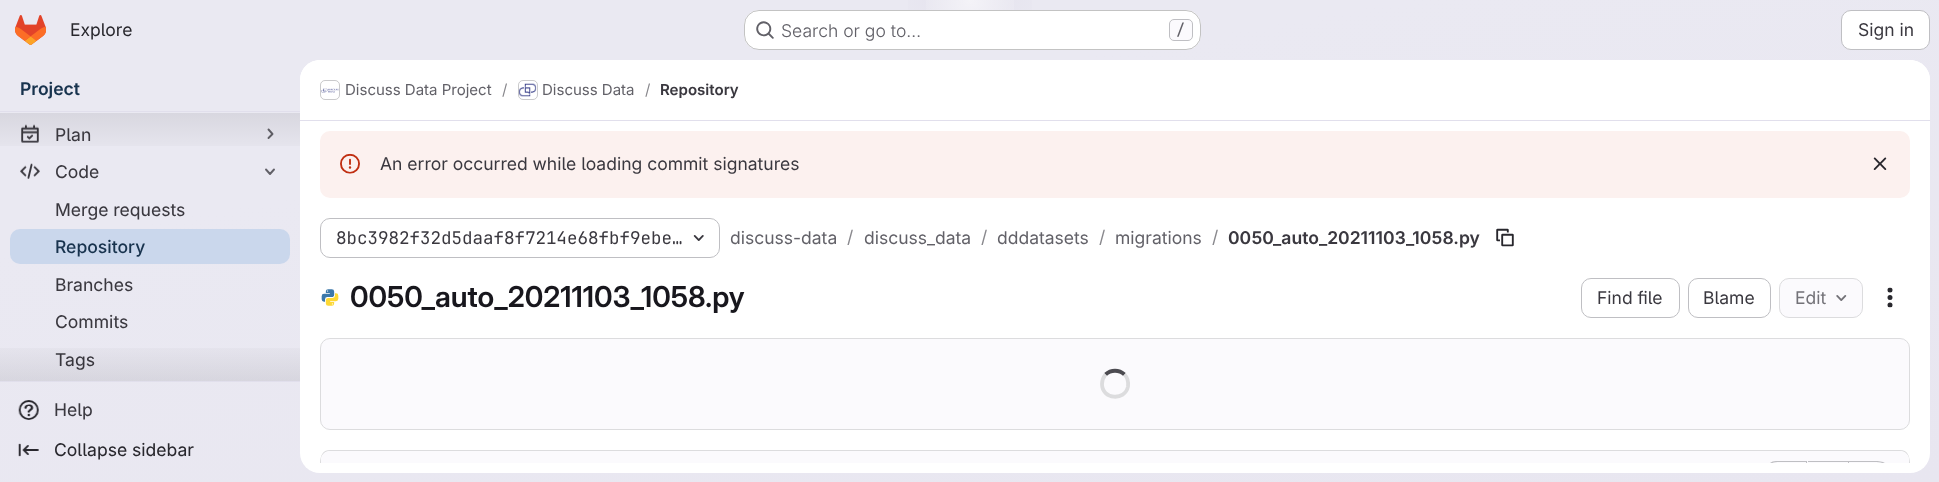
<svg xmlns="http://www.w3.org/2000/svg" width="1939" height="482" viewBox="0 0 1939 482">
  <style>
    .t1 { font: 17.5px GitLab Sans; fill: #28272d; }
    .t2 { font: 300 17.5px GitLab Sans; fill: #626168; }
    .t3 { font: 500 15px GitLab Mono; fill: #626168; }
    .t4 { font: 17.5px GitLab Sans; fill: #3a383f; }
    .t5 { font: 600 17.5px GitLab Sans; fill: #18334e; }
    .t6 { font: 17.5px 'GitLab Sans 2'; fill: #3a383f; }
    .t7 { font: 500 17.5px GitLab Sans; fill: #18334e; }
    .t8 { font: 17.5px 'GitLab Sans 2'; fill: #28272d; }
    .t9 { font: 15px GitLab Sans; fill: #626168; }
    .t10 { font: 15px GitLab Sans; fill: #89888d; }
    .t11 { font: 600 15px GitLab Sans; fill: #3a383f; }
    .t12 { font: 17.5px GitLab Mono; fill: #3a383f; }
    .t13 { font: 17.5px GitLab Sans; fill: #626168; }
    .t14 { font: 17.5px GitLab Sans; fill: #89888d; }
    .t15 { font: 600 17.5px GitLab Sans; fill: #3a383f; }
    .t16 { font: 600 28.75px 'GitLab Sans 2'; fill: #18171d; }
    .t17 { font: 17.5px GitLab Sans; fill: #737278; }
  </style>
  <defs>
    <linearGradient id="g1" gradientUnits="userSpaceOnUse" x1="1041" y1="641" x2="899" y2="-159"><stop offset="0" stop-color="#e8e6f0"/><stop offset="0.7" stop-color="#eae9f2"/></linearGradient>
    <radialGradient id="g2" gradientUnits="userSpaceOnUse" cx="0" cy="0" r="1" gradientTransform="matrix(970 0 0 483 970 0)"><stop offset="0" stop-color="#e4e2ed"/><stop offset="0.09" stop-color="#e4e2ed" stop-opacity="0"/></radialGradient>
    <radialGradient id="g3" gradientUnits="userSpaceOnUse" cx="970" cy="0" r="1083"><stop offset="0" stop-color="#fff" stop-opacity="0.6"/><stop offset="0.05" stop-color="#fff" stop-opacity="0"/></radialGradient>
    <linearGradient id="g4" gradientUnits="userSpaceOnUse" x1="150" y1="112" x2="150" y2="158"><stop offset="0" stop-color="#050506" stop-opacity="0.08"/><stop offset="1" stop-color="#050506" stop-opacity="0"/></linearGradient>
    <linearGradient id="g5" gradientUnits="userSpaceOnUse" x1="150" y1="336" x2="150" y2="381"><stop offset="0" stop-color="#050506" stop-opacity="0"/><stop offset="1" stop-color="#050506" stop-opacity="0.08"/></linearGradient>
    <clipPath id="clip1"><rect x="300" y="121" width="1630" height="342"/></clipPath>
  </defs>
  <rect width="100%" height="100%" fill="#fff"/>
  <rect x="0" y="0" width="1939" height="482" fill="url(#g1)"/>
  <rect x="908" y="0" width="124" height="10" fill="url(#g2)"/>
  <rect x="926" y="0" width="88" height="43" fill="url(#g3)"/>
  <image x="15" y="15" width="31" height="30" href="images/1.png"/>
  <text x="70" y="36" class="t1">Explore</text>
  <rect x="744" y="10" width="457" height="40" rx="15" fill="#fff"/>
  <rect x="744.5" y="10.5" width="456" height="39" rx="14.5" fill="none" stroke="#0505063d"/>
  <image x="756" y="21" width="18" height="18" href="images/2.png"/>
  <text x="781" y="37" class="t2">Search or go to…</text>
  <rect x="1169.5" y="19.5" width="23" height="21" rx="4.5" fill="#fbfafd" stroke="#bfbfc3"/>
  <text x="1176" y="35" class="t3">/</text>
  <rect x="1841.5" y="10.5" width="88" height="39" rx="9.5" fill="#fff" stroke="#bfbfc3"/>
  <text x="1858" y="36" class="t4">Sign in</text>
  <text x="20" y="95" class="t5">Project</text>
  <rect x="0" y="111" width="300" height="1" fill="#e1dfec"/>
  <rect x="0" y="381" width="300" height="1" fill="#e1dfec"/>
  <image x="21" y="124" width="18" height="19" href="images/3.png"/>
  <path d="M268.5 129.5L272.5 134L268.5 138" fill="none" stroke="#626168" stroke-width="1.9" stroke-linecap="round" stroke-linejoin="round"/>
  <rect x="0" y="113" width="300" height="33" fill="url(#g4)"/>
  <text x="55" y="141" class="t6">Plan</text>
  <image x="20" y="163" width="20" height="16" href="images/4.png"/>
  <text x="55" y="178" class="t6">Code</text>
  <path d="M274 169.5L270 174L266 169.5" fill="none" stroke="#626168" stroke-width="1.9" stroke-linecap="round" stroke-linejoin="round"/>
  <text x="55" y="216" class="t6">Merge requests</text>
  <rect x="10" y="229" width="280" height="35" rx="10" fill="#cad7ec"/>
  <text x="55" y="253" class="t7">Repository</text>
  <text x="55" y="291" class="t6">Branches</text>
  <text x="55" y="328" class="t6">Commits</text>
  <text x="55" y="366" class="t6">Tags</text>
  <rect x="0" y="348" width="300" height="33" fill="url(#g5)"/>
  <image x="18" y="400" width="21" height="20" href="images/5.png"/>
  <text x="54" y="416" class="t6">Help</text>
  <image x="18" y="443" width="21" height="14" href="images/6.png"/>
  <text x="54" y="456" class="t8">Collapse sidebar</text>
  <rect x="300" y="60" width="1630" height="413" rx="20" fill="#fff"/>
  <path d="M320 60H1910C1921 60 1930 69 1930 80V121H300V80C300 69 309 60 320 60Z" fill="#fff"/>
  <rect x="300" y="120" width="1630" height="1" fill="#e1dfec"/>
  <rect x="320.5" y="80.5" width="19" height="19" rx="4.5" fill="none" stroke="#dcdcde"/>
  <image x="321" y="88" width="18" height="5" href="images/7.png"/>
  <rect x="320.5" y="80.5" width="19" height="19" rx="4.5" fill="none" stroke="#05050614"/>
  <text x="345" y="95" class="t9">Discuss Data Project</text>
  <text x="502" y="95" class="t10">/</text>
  <rect x="518.5" y="80.5" width="19" height="19" rx="4.5" fill="none" stroke="#dcdcde"/>
  <image x="518" y="83" width="19" height="14" href="images/8.png"/>
  <rect x="518.5" y="80.5" width="19" height="19" rx="4.5" fill="none" stroke="#05050614"/>
  <text x="542" y="95" class="t9">Discuss Data</text>
  <text x="645" y="95" class="t10">/</text>
  <text x="660" y="95" class="t11">Repository</text>
  <rect x="320" y="131" width="1590" height="67" rx="10" fill="#fcf1ef"/>
  <image x="340" y="153" width="20" height="21" href="images/9.png"/>
  <text x="380" y="170" class="t4">An error occurred while loading commit signatures</text>
  <image x="1873" y="157" width="14" height="13" href="images/10.png"/>
  <rect x="320.5" y="218.5" width="399" height="39" rx="9.5" fill="none" stroke="#bfbfc3"/>
  <text x="336" y="244" class="t12">8bc3982f32d5daaf8f7214e68fbf9ebe…</text>
  <image x="693" y="235" width="11" height="6" href="images/11.png"/>
  <text x="730" y="244" class="t13">discuss-data</text>
  <text x="847" y="243" class="t14">/</text>
  <text x="864" y="244" class="t13">discuss_data</text>
  <text x="981" y="243" class="t14">/</text>
  <text x="997" y="244" class="t13">dddatasets</text>
  <text x="1099" y="243" class="t14">/</text>
  <text x="1115" y="244" class="t13">migrations</text>
  <text x="1212" y="243" class="t14">/</text>
  <text x="1228" y="244" class="t15">0050_auto_20211103_1058.py</text>
  <image x="1496" y="228" width="18" height="19" href="images/12.png"/>
  <image x="321" y="289" width="18" height="17" href="images/13.png"/>
  <text x="350" y="307" class="t16">0050_auto_20211103_1058.py</text>
  <rect x="1581.5" y="278.5" width="98" height="39" rx="9.5" fill="none" stroke="#bfbfc3"/>
  <text x="1597" y="304" class="t4">Find file</text>
  <rect x="1688.5" y="278.5" width="82" height="39" rx="9.5" fill="none" stroke="#bfbfc3"/>
  <text x="1703" y="304" class="t4">Blame</text>
  <rect x="1779.5" y="278.5" width="83" height="39" rx="9.5" fill="#fbfafd" stroke="#dcdcde"/>
  <text x="1795" y="304" class="t17">Edit</text>
  <image x="1836" y="295" width="11" height="6" href="images/14.png"/>
  <image x="1887" y="287" width="6" height="21" href="images/15.png"/>
  <rect x="320.5" y="338.5" width="1589" height="91" rx="9.5" fill="#fbfafd" stroke="#dcdcde"/>
  <path d="M1105.5 374.5C1111 369.5 1119 369.5 1124.5 374.5" fill="none" stroke="#4c4b51" stroke-width="3.8"/>
  <path d="M1124.5 374.5C1127.5 377.5 1128.5 382 1128 386.5C1125 401.5 1102 399.5 1102 384C1102 380.5 1103.5 377 1105.5 374.5" fill="none" stroke="#dcdcde" stroke-width="3.8"/>
  <g clip-path="url(#clip1)">
    <path d="M330 450C318 450 320 465 320 473H321V460C321 455 325 451 330 451H1900C1905 451 1909 455 1909 460V473H1910C1910 465 1912 450 1900 450Z" fill="#dcdcde"/>
  </g>
  <path d="M330 451H1900C1905 451 1909 455 1909 460V463H321V460C321 455 325 451 330 451Z" fill="#fbfafd"/>
  <g clip-path="url(#clip1)">
    <path d="M1776 461H1806V462H1786C1776 462 1768 460 1768 473H1766C1766 467 1769 461 1776 461Z" fill="#bfbfc3"/>
  </g>
  <rect x="1808" y="461" width="40" height="1" fill="#bfbfc3"/>
  <rect x="1806" y="461" width="1" height="2" fill="#bfbfc3"/>
  <g clip-path="url(#clip1)">
    <path d="M1849 461H1874C1886.5 461 1888.5 464.5 1889 473H1888C1887.5 465.5 1885.5 462 1874 462H1849Z" fill="#bfbfc3"/>
  </g>
  <rect x="1848" y="461" width="1" height="2" fill="#bfbfc3"/>
</svg>
